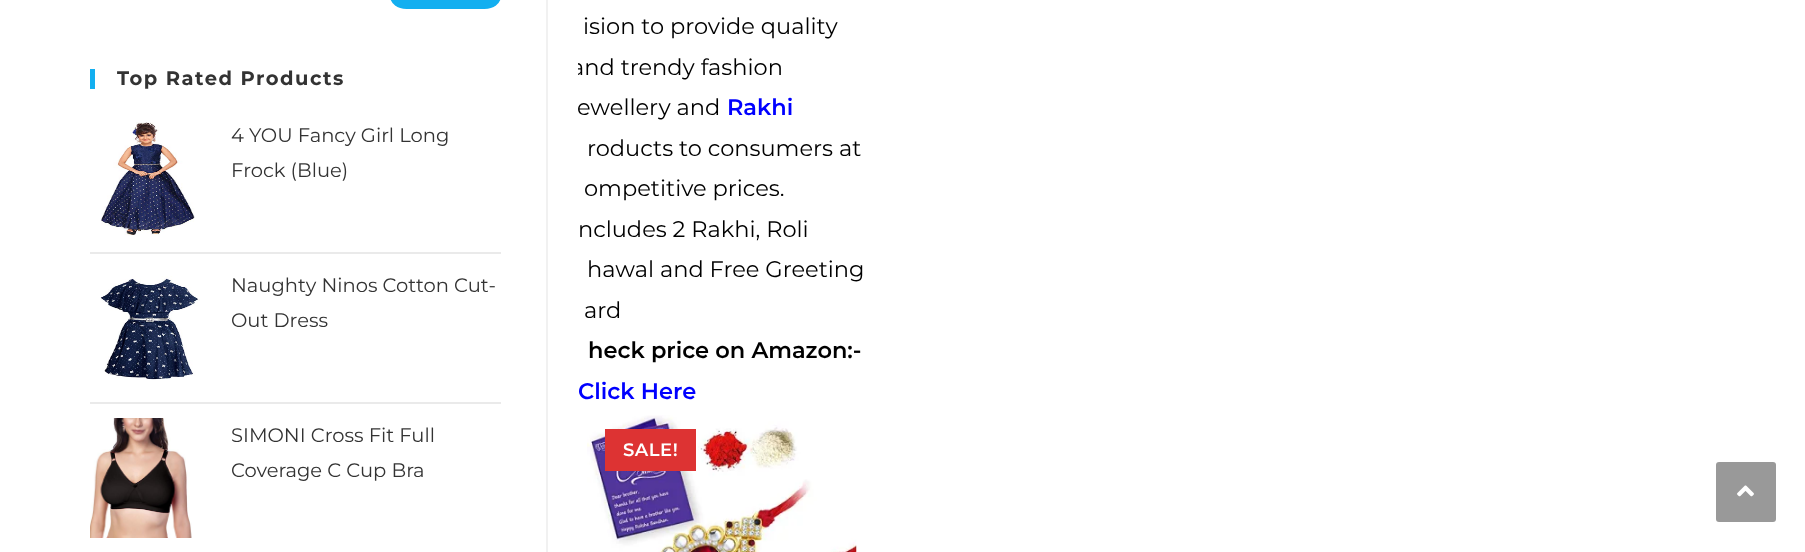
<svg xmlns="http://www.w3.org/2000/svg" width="1805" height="552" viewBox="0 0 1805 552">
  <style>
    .t1 { font: 100 19.5px Montserrat; letter-spacing: 1.5px; fill: #333; }
    .t2 { font: 100 19.5px 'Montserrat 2'; fill: #333; }
    .t3 { font: 100 22.5px 'Montserrat 2'; fill: #000; }
    .t4 { font: 100 22.5px 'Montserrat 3'; fill: #00f; }
    .t5 { font: 100 22.5px 'Montserrat 3'; fill: #000; }
    .t6 { font: 100 18px 'Montserrat 3'; letter-spacing: 0.5px; fill: #fff; }
  </style>
  <defs>
    <clipPath id="clip1"><rect x="578" y="0" width="288" height="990"/></clipPath>
  </defs>
  <rect width="100%" height="100%" fill="#fff"/>
  <rect x="390" y="-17" width="111" height="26" rx="16.5" fill="#13aff0"/>
  <rect x="90" y="69" width="5" height="20" fill="#13aff0"/>
  <text x="117" y="85" class="t1">Top Rated Products</text>
  <rect x="90" y="252" width="411" height="2" fill="#eaeaea"/>
  <image x="101" y="122" width="94" height="114" href="images/1.png"/>
  <text x="231" y="142" class="t2">4 YOU Fancy Girl Long</text>
  <text x="231" y="177" class="t2">Frock (Blue)</text>
  <rect x="90" y="402" width="411" height="2" fill="#eaeaea"/>
  <image x="100" y="276" width="100" height="104" href="images/2.png"/>
  <text x="231" y="292" class="t2">Naughty Ninos Cotton Cut-</text>
  <text x="231" y="327" class="t2">Out Dress</text>
  <image x="90" y="418" width="102" height="120" href="images/3.png"/>
  <text x="231" y="442" class="t2">SIMONI Cross Fit Full</text>
  <text x="231" y="477" class="t2">Coverage C Cup Bra</text>
  <rect x="546" y="0" width="2" height="552" fill="#f1f1f1"/>
  <text x="583" y="34" class="t3">ision to provide quality</text>
  <g clip-path="url(#clip1)">
    <text x="571" y="75" class="t3">and trendy fashion</text>
  </g>
  <text x="577" y="115" class="t3">ewellery and</text>
  <text x="727" y="115" class="t4">Rakhi</text>
  <text x="587" y="156" class="t3">roducts to consumers at</text>
  <text x="584" y="196" class="t3">ompetitive prices.</text>
  <text x="578" y="237" class="t3">ncludes 2 Rakhi, Roli</text>
  <text x="587" y="277" class="t3">hawal and Free Greeting</text>
  <text x="584" y="318" class="t3">ard</text>
  <text x="588" y="358" class="t5">heck price on Amazon:-</text>
  <text x="578" y="399" class="t4">Click Here</text>
  <image x="587" y="415" width="270" height="137" href="images/4.png"/>
  <rect x="605" y="429" width="91" height="42" fill="#d33"/>
  <text x="623" y="456" class="t6">SALE!</text>
  <rect x="1716" y="462" width="60" height="60" rx="3" fill="#999"/>
  <image x="1737" y="485" width="17" height="12" href="images/5.png"/>
</svg>
